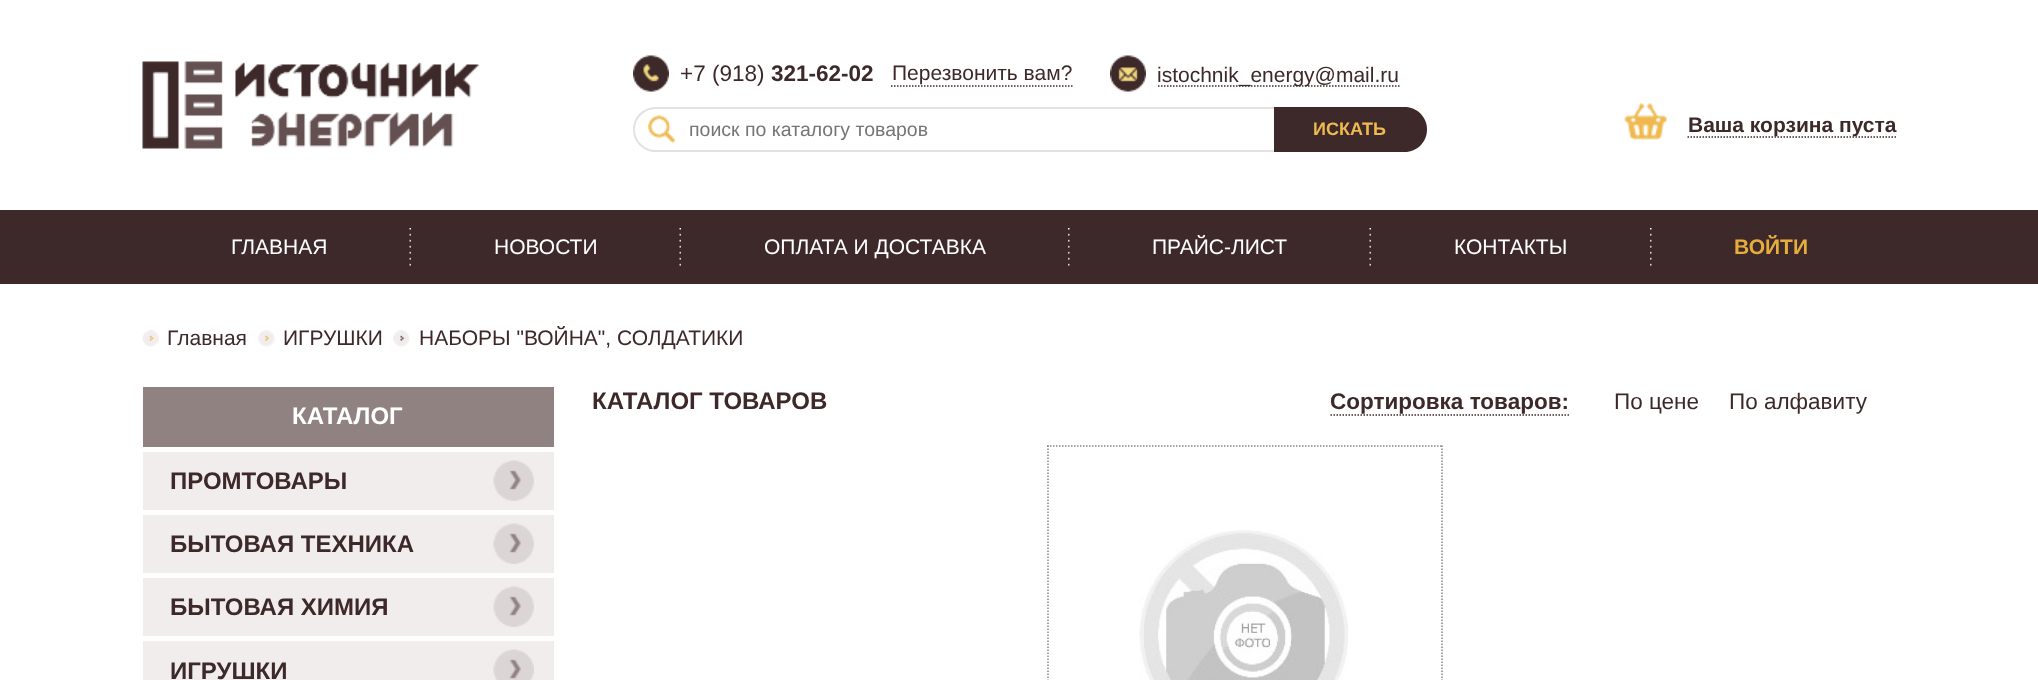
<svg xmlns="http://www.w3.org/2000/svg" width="2038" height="680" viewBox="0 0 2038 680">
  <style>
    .t1 { font: 22.5px Liberation Sans; fill: #3d292a; }
    .t2 { font: bold 22.5px Liberation Sans; fill: #3d292a; }
    .t3 { font: 21px Liberation Sans; fill: #3d292a; }
    .t4 { font: 19.5px Liberation Sans; fill: #757575; }
    .t5 { font: bold 18px Liberation Sans; fill: #efb950; }
    .t6 { font: bold 21px Liberation Sans; fill: #3d292a; }
    .t7 { font: 21px Liberation Sans; fill: #fff; }
    .t8 { font: bold 21px Liberation Sans; fill: #e6ac3c; }
    .t9 { font: bold 24px Liberation Sans; fill: #3d292a; }
    .t10 { font: bold 24px Liberation Sans; fill: #fff; }
  </style>
  <rect width="100%" height="100%" fill="#fff"/>
  <image x="142" y="61" width="337" height="88" href="images/1.png"/>
  <image x="633" y="55" width="36" height="37" href="images/2.png"/>
  <text x="680" y="81" class="t1">+7 (918)</text>
  <text x="771" y="81" class="t2">321-62-02</text>
  <text x="892" y="80" class="t3">Перезвонить вам?</text>
  <path d="M891 86H1072.5" fill="none" stroke="#3d292a" stroke-width="1.5" stroke-dasharray="1.5 1.5"/>
  <image x="1110" y="55" width="36" height="37" href="images/3.png"/>
  <path d="M1158 86H1399.5" fill="none" stroke="#3d292a" stroke-width="1.5" stroke-dasharray="1.5 1.5"/>
  <text x="1157" y="82" class="t3">istochnik_energy@mail.ru</text>
  <image x="648" y="115" width="27" height="28" href="images/4.png"/>
  <rect x="634" y="108" width="792" height="43" rx="21.5" fill="none" stroke="#e4e1e1" stroke-width="2"/>
  <text x="689" y="136" class="t4">поиск по каталогу товаров</text>
  <path d="M1274 107H1404.5C1417 107 1427 117 1427 129.5C1427 142 1417 152 1404.5 152H1274Z" fill="#3d292a"/>
  <text x="1313" y="135" class="t5">ИСКАТЬ</text>
  <image x="1624" y="103" width="43" height="37" href="images/5.png"/>
  <path d="M1687.5 137H1897.5" fill="none" stroke="#3d292a" stroke-width="1.5" stroke-dasharray="1.5 1.5"/>
  <text x="1688" y="132" class="t6">Ваша корзина пуста</text>
  <rect x="0" y="210" width="2038" height="74" fill="#3d292a"/>
  <image x="409" y="228" width="2" height="38" href="images/6.png"/>
  <text x="231" y="254" class="t7">ГЛАВНАЯ</text>
  <image x="679" y="228" width="2" height="38" href="images/6.png"/>
  <text x="494" y="254" class="t7">НОВОСТИ</text>
  <image x="1068" y="228" width="2" height="38" href="images/7.png"/>
  <text x="764" y="254" class="t7">ОПЛАТА И ДОСТАВКА</text>
  <image x="1369" y="228" width="2" height="38" href="images/6.png"/>
  <text x="1152" y="254" class="t7">ПРАЙС-ЛИСТ</text>
  <image x="1650" y="228" width="2" height="38" href="images/7.png"/>
  <text x="1454" y="254" class="t7">КОНТАКТЫ</text>
  <text x="1734" y="254" class="t8">ВОЙТИ</text>
  <image x="142" y="330" width="17" height="17" href="images/8.png"/>
  <text x="167" y="345" class="t3">Главная</text>
  <image x="258" y="330" width="17" height="17" href="images/9.png"/>
  <text x="283" y="345" class="t3">ИГРУШКИ</text>
  <image x="393" y="330" width="17" height="17" href="images/10.png"/>
  <text x="419" y="345" class="t3">НАБОРЫ "ВОЙНА", СОЛДАТИКИ</text>
  <text x="592" y="409" class="t9">КАТАЛОГ ТОВАРОВ</text>
  <text x="1330" y="409" class="t2">Сортировка товаров:</text>
  <path d="M1330.5 415H1569" fill="none" stroke="#3d292a" stroke-width="1.5" stroke-dasharray="1.5 1.5"/>
  <text x="1614" y="409" class="t1">По цене</text>
  <text x="1729" y="409" class="t1">По алфавиту</text>
  <path d="M1047 446H1443" fill="none" stroke="#918282" stroke-width="1.5" stroke-dasharray="1.5 1.5"/>
  <path d="M1442 445.5V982.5" fill="none" stroke="#918282" stroke-width="1.5" stroke-dasharray="1.5 1.5"/>
  <path d="M1048 445.5V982.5" fill="none" stroke="#918282" stroke-width="1.5" stroke-dasharray="1.5 1.5"/>
  <image x="1139" y="530" width="209" height="150" href="images/11.png"/>
  <rect x="143" y="387" width="411" height="60" fill="#918282"/>
  <text x="292" y="424" class="t10">КАТАЛОГ</text>
  <rect x="143" y="452" width="411" height="58" fill="#f2eded"/>
  <text x="170" y="489" class="t9">ПРОМТОВАРЫ</text>
  <image x="493" y="460" width="41" height="41" href="images/12.png"/>
  <rect x="143" y="515" width="411" height="58" fill="#f2eded"/>
  <text x="170" y="552" class="t9">БЫТОВАЯ ТЕХНИКА</text>
  <image x="493" y="523" width="41" height="41" href="images/12.png"/>
  <rect x="143" y="578" width="411" height="58" fill="#f2eded"/>
  <text x="170" y="615" class="t9">БЫТОВАЯ ХИМИЯ</text>
  <image x="493" y="586" width="41" height="41" href="images/12.png"/>
  <rect x="143" y="641" width="411" height="39" fill="#f2eded"/>
  <text x="170" y="679" class="t9">ИГРУШКИ</text>
  <image x="493" y="649" width="41" height="31" href="images/13.png"/>
</svg>
